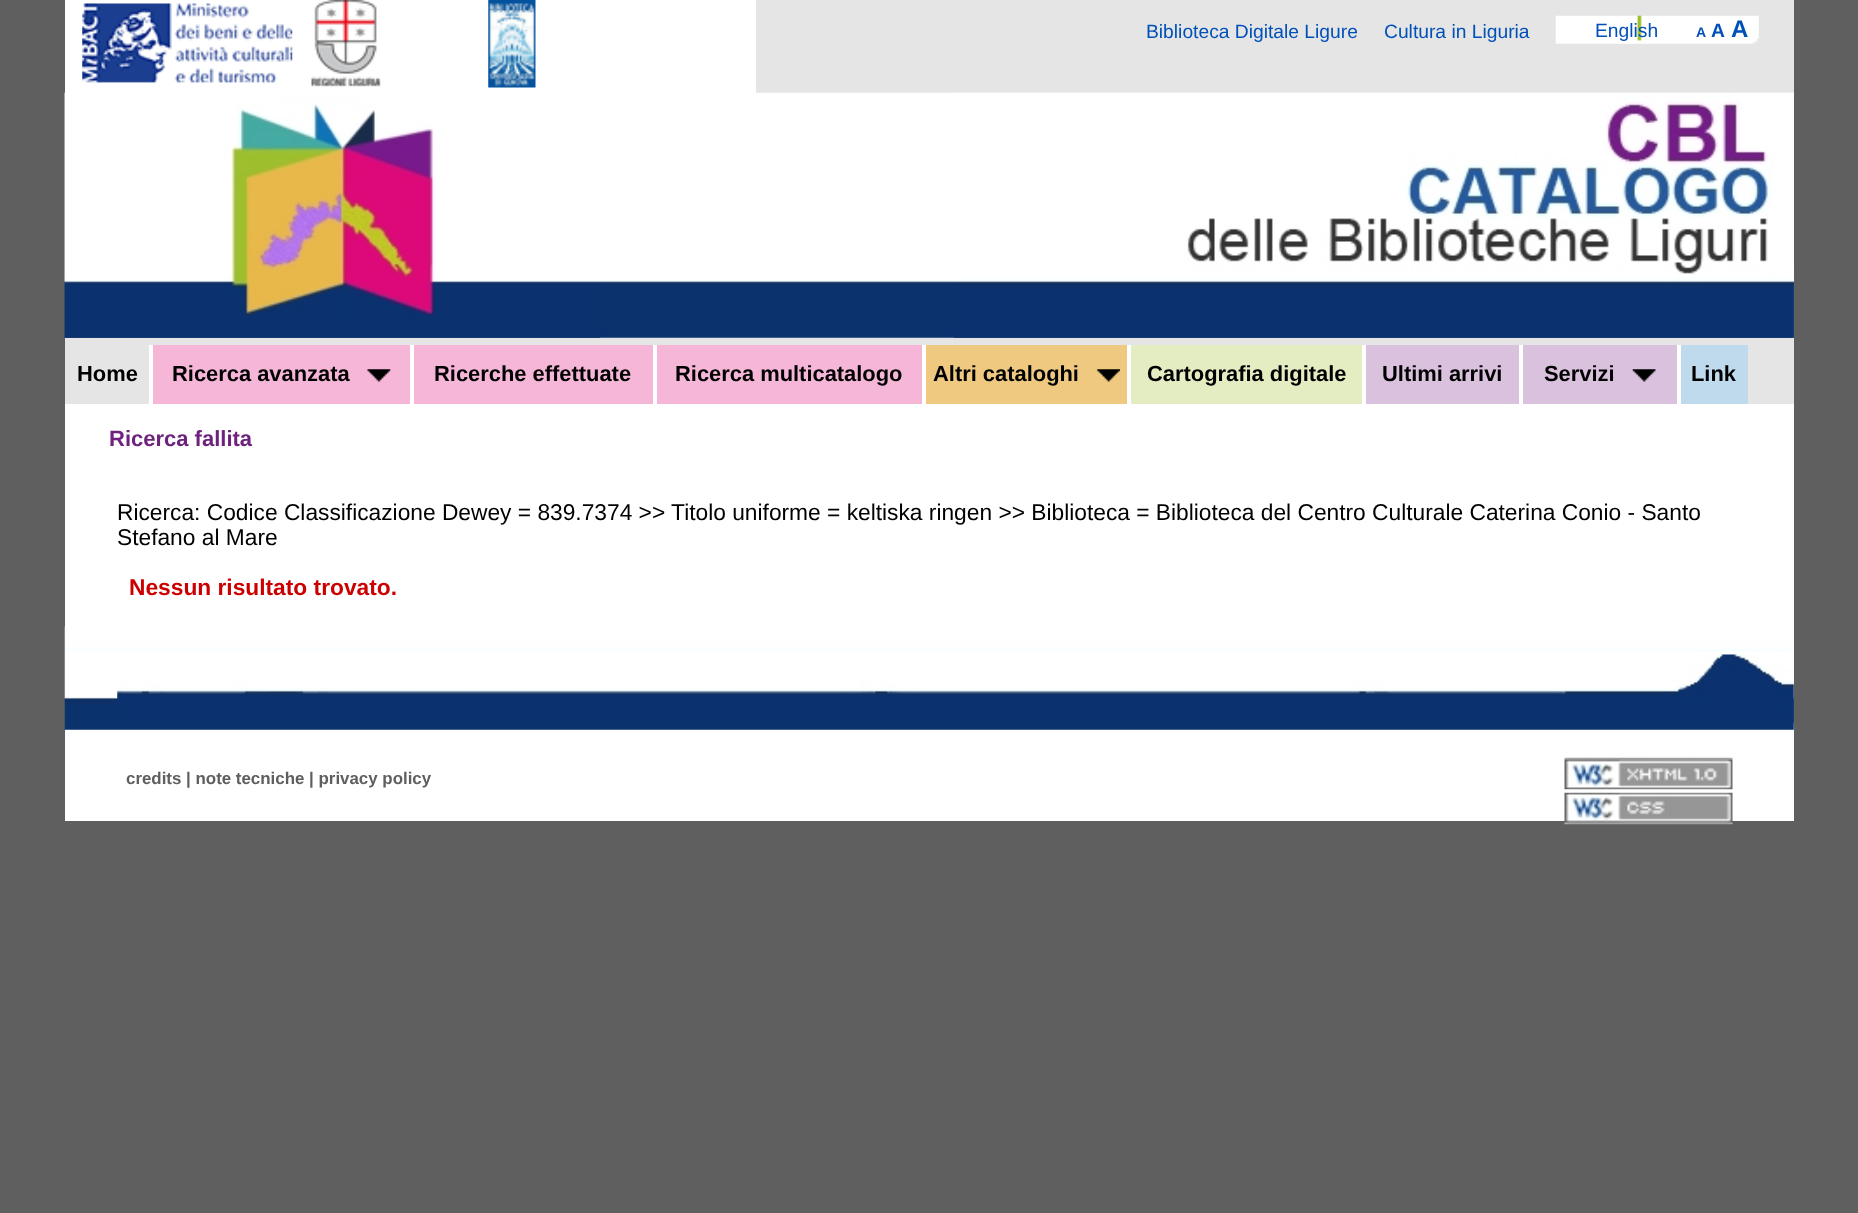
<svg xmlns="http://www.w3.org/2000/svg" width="1858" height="1213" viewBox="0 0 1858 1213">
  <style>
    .t1 { font: 19.25px Liberation Sans; fill: #0050b9; }
    .t2 { font: bold 14px Liberation Sans; fill: #0050b9; }
    .t3 { font: bold 19.25px Liberation Sans; fill: #0050b9; }
    .t4 { font: bold 24px Liberation Sans; fill: #0050b9; }
    .t5 { font: bold 21.9px Liberation Sans; fill: #000; }
    .t6 { font: bold 22px Liberation Sans; fill: #6e217d; }
    .t7 { font: 22.75px Liberation Sans; fill: #000; }
    .t8 { font: bold 22.75px Liberation Sans; fill: #c00; }
    .t9 { font: bold 16.9px Liberation Sans; fill: #5f5f5f; }
  </style>
  <rect width="100%" height="100%" fill="#5f5f5f"/>
  <rect x="65" y="404" width="1729" height="417" fill="#fff"/>
  <rect x="65" y="0" width="1729" height="404" fill="#e5e5e5"/>
  <image x="64" y="92" width="1730" height="246" href="images/5.png"/>
  <rect x="65" y="0" width="691" height="93" fill="#fff"/>
  <image x="82" y="3" width="211" height="80" href="images/1.png"/>
  <image x="311" y="0" width="70" height="87" href="images/2.png"/>
  <image x="488" y="0" width="48" height="88" href="images/3.png"/>
  <image x="1555" y="15" width="204" height="29" href="images/4.png"/>
  <text x="1146" y="38" class="t1">Biblioteca Digitale Ligure</text>
  <text x="1384" y="38" class="t1">Cultura in Liguria</text>
  <text x="1595" y="37" class="t1">English</text>
  <text x="1696" y="37" class="t2">A</text>
  <text x="1711" y="37" class="t3">A</text>
  <text x="1731" y="37" class="t4">A</text>
  <image x="64" y="92" width="537" height="246" href="images/6.png"/>
  <image x="953" y="92" width="841" height="246" href="images/7.png"/>
  <text x="77" y="381" class="t5">Home</text>
  <rect x="153" y="345" width="257" height="59" fill="#f5b6d8"/>
  <rect x="149" y="345" width="4" height="59" fill="#fff"/>
  <text x="172" y="381" class="t5">Ricerca avanzata</text>
  <image x="367" y="369" width="24" height="13" href="images/8.png"/>
  <rect x="414" y="345" width="239" height="59" fill="#f5b6d8"/>
  <rect x="410" y="345" width="4" height="59" fill="#fff"/>
  <text x="434" y="381" class="t5">Ricerche effettuate</text>
  <rect x="657" y="345" width="265" height="59" fill="#f5b6d8"/>
  <rect x="653" y="345" width="4" height="59" fill="#fff"/>
  <text x="675" y="381" class="t5">Ricerca multicatalogo</text>
  <rect x="926" y="345" width="201" height="59" fill="#efc980"/>
  <rect x="922" y="345" width="4" height="59" fill="#fff"/>
  <text x="933" y="381" class="t5">Altri cataloghi</text>
  <image x="1097" y="369" width="23" height="13" href="images/9.png"/>
  <rect x="1131" y="345" width="231" height="59" fill="#e4ecc2"/>
  <rect x="1127" y="345" width="4" height="59" fill="#fff"/>
  <text x="1147" y="381" class="t5">Cartografia digitale</text>
  <rect x="1366" y="345" width="153" height="59" fill="#dac2df"/>
  <rect x="1362" y="345" width="4" height="59" fill="#fff"/>
  <text x="1382" y="381" class="t5">Ultimi arrivi</text>
  <rect x="1523" y="345" width="154" height="59" fill="#dac2df"/>
  <rect x="1519" y="345" width="4" height="59" fill="#fff"/>
  <text x="1544" y="381" class="t5">Servizi</text>
  <image x="1632" y="369" width="24" height="13" href="images/10.png"/>
  <rect x="1681" y="345" width="67" height="59" fill="#bfdaec"/>
  <rect x="1677" y="345" width="4" height="59" fill="#fff"/>
  <text x="1691" y="381" class="t5">Link</text>
  <text x="109" y="446" class="t6">Ricerca fallita</text>
  <text x="117" y="520" class="t7">Ricerca: Codice Classificazione Dewey = 839.7374 &gt;&gt; Titolo uniforme = keltiska ringen &gt;&gt; Biblioteca = Biblioteca del Centro Culturale Caterina Conio - Santo</text>
  <text x="117" y="545" class="t7">Stefano al Mare</text>
  <text x="129" y="595" class="t8">Nessun risultato trovato.</text>
  <image x="64" y="626" width="1730" height="104" href="images/11.png"/>
  <image x="117" y="654" width="1677" height="69" href="images/12.png"/>
  <text x="126" y="784" class="t9">credits | note tecniche | privacy policy</text>
  <image x="1564" y="757" width="169" height="33" href="images/13.png"/>
  <image x="1564" y="792" width="169" height="33" href="images/14.png"/>
</svg>
